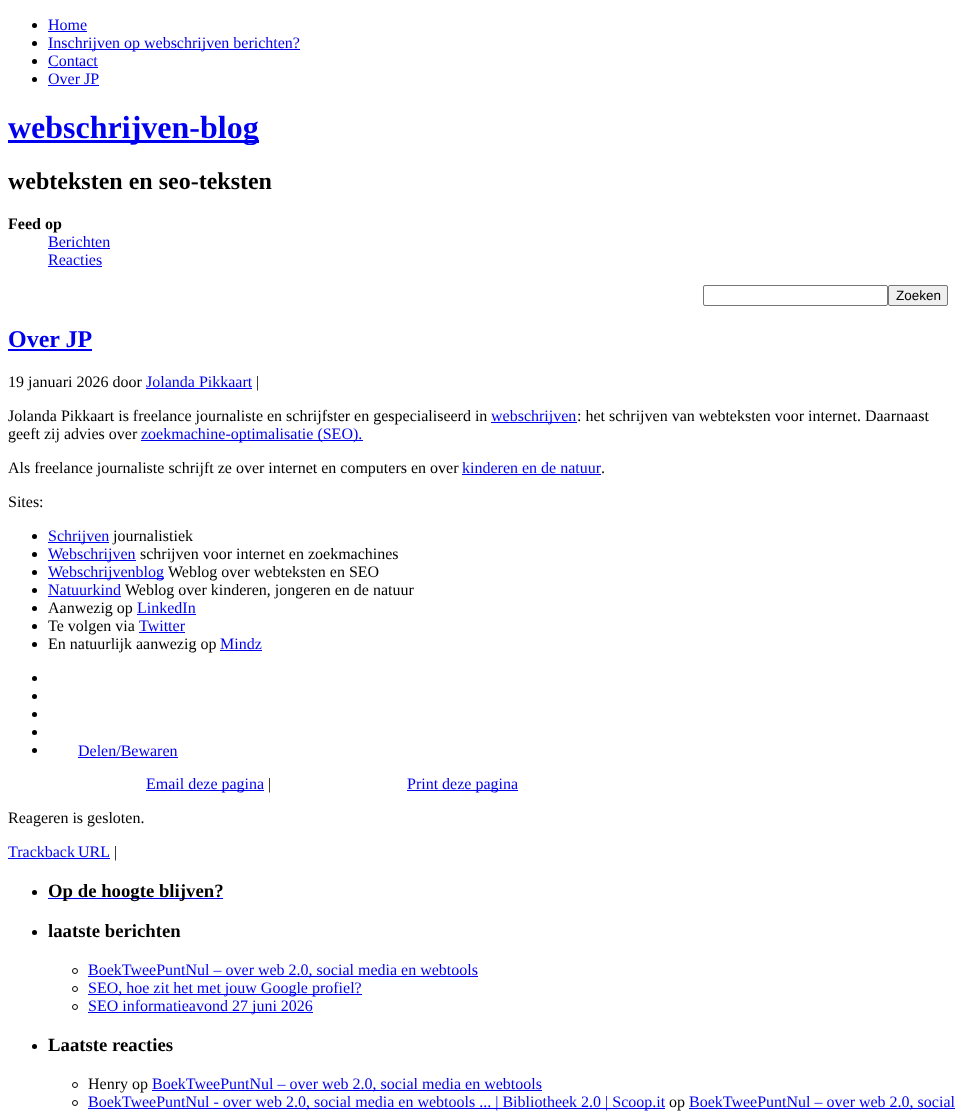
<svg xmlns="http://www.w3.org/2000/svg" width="972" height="1118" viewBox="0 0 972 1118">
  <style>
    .t1 { font: 16px Liberation Serif; fill: #00e; }
    .t2 { font: bold 32px Liberation Serif; fill: #00e; }
    .t3 { font: bold 24px Liberation Serif; fill: #000; }
    .t4 { font: bold 16px Liberation Serif; fill: #000; }
    .t5 { font: 13.5px Liberation Sans; fill: #000; }
    .t6 { font: bold 24px Liberation Serif; fill: #00e; }
    .t7 { font: 16px Liberation Serif; fill: #000; }
    .t8 { font: bold 18.75px Liberation Serif; fill: #000; }
  </style>
  <rect width="100%" height="100%" fill="#fff"/>
  <circle cx="34.5" cy="25.5" r="2.5" fill="#000"/>
  <text x="48" y="30" class="t1">Home</text>
  <rect x="48" y="31" width="39" height="1" fill="#00e"/>
  <circle cx="34.5" cy="43.5" r="2.5" fill="#000"/>
  <rect x="48" y="49" width="252" height="1" fill="#00e"/>
  <text x="48" y="48" class="t1">Inschrijven op webschrijven berichten?</text>
  <circle cx="34.5" cy="61.5" r="2.5" fill="#000"/>
  <text x="48" y="66" class="t1">Contact</text>
  <rect x="48" y="67" width="50" height="1" fill="#00e"/>
  <circle cx="34.5" cy="79.5" r="2.5" fill="#000"/>
  <text x="48" y="84" class="t1">Over JP</text>
  <rect x="48" y="85" width="51" height="1" fill="#00e"/>
  <rect x="8" y="140" width="251" height="3" fill="#00e"/>
  <text x="8" y="138" class="t2">webschrijven-blog</text>
  <text x="8" y="189" class="t3">webteksten en seo-teksten</text>
  <text x="8" y="229" class="t4">Feed op</text>
  <text x="48" y="247" class="t1">Berichten</text>
  <rect x="48" y="248" width="62" height="1" fill="#00e"/>
  <text x="48" y="265" class="t1">Reacties</text>
  <rect x="48" y="266" width="54" height="1" fill="#00e"/>
  <rect x="703.5" y="285.5" width="184" height="20" rx="1.5" fill="none" stroke="#767676"/>
  <rect x="888.5" y="285.5" width="59" height="20" rx="1.5" fill="#efefef" stroke="#767676"/>
  <text x="896" y="300" class="t5">Zoeken</text>
  <text x="8" y="347" class="t6">Over JP</text>
  <rect x="8" y="349" width="84" height="2" fill="#00e"/>
  <text x="8" y="387" class="t7">19 januari 2026 door</text>
  <text x="146" y="387" class="t1">Jolanda Pikkaart</text>
  <rect x="146" y="388" width="106" height="1" fill="#00e"/>
  <text x="256" y="387" class="t7">|</text>
  <text x="8" y="421" class="t7">Jolanda Pikkaart is freelance journaliste en schrijfster en gespecialiseerd in</text>
  <rect x="491" y="422" width="86" height="1" fill="#00e"/>
  <text x="491" y="421" class="t1">webschrijven</text>
  <text x="577" y="421" class="t7">: het schrijven van webteksten voor internet. Daarnaast</text>
  <text x="8" y="439" class="t7">geeft zij advies over</text>
  <rect x="141" y="440" width="222" height="1" fill="#00e"/>
  <text x="141" y="439" class="t1">zoekmachine-optimalisatie (SEO).</text>
  <text x="8" y="473" class="t7">Als freelance journaliste schrijft ze over internet en computers en over</text>
  <text x="462" y="473" class="t1">kinderen en de natuur</text>
  <rect x="462" y="474" width="139" height="1" fill="#00e"/>
  <text x="601" y="473" class="t7">.</text>
  <text x="8" y="507" class="t7">Sites:</text>
  <circle cx="34.5" cy="536.5" r="2.5" fill="#000"/>
  <rect x="48" y="542" width="61" height="1" fill="#00e"/>
  <text x="48" y="541" class="t1">Schrijven</text>
  <text x="113" y="541" class="t7">journalistiek</text>
  <circle cx="34.5" cy="554.5" r="2.5" fill="#000"/>
  <rect x="48" y="560" width="88" height="1" fill="#00e"/>
  <text x="48" y="559" class="t1">Webschrijven</text>
  <text x="140" y="559" class="t7">schrijven voor internet en zoekmachines</text>
  <circle cx="34.5" cy="572.5" r="2.5" fill="#000"/>
  <rect x="48" y="578" width="116" height="1" fill="#00e"/>
  <text x="48" y="577" class="t1">Webschrijvenblog</text>
  <text x="168" y="577" class="t7">Weblog over webteksten en SEO</text>
  <circle cx="34.5" cy="590.5" r="2.5" fill="#000"/>
  <text x="48" y="595" class="t1">Natuurkind</text>
  <rect x="48" y="596" width="73" height="1" fill="#00e"/>
  <text x="125" y="595" class="t7">Weblog over kinderen, jongeren en de natuur</text>
  <circle cx="34.5" cy="608.5" r="2.5" fill="#000"/>
  <text x="48" y="613" class="t7">Aanwezig op</text>
  <text x="137" y="613" class="t1">LinkedIn</text>
  <rect x="137" y="614" width="59" height="1" fill="#00e"/>
  <circle cx="34.5" cy="626.5" r="2.5" fill="#000"/>
  <text x="48" y="631" class="t7">Te volgen via</text>
  <text x="139" y="631" class="t1">Twitter</text>
  <rect x="139" y="632" width="46" height="1" fill="#00e"/>
  <circle cx="34.5" cy="644.5" r="2.5" fill="#000"/>
  <text x="48" y="649" class="t7">En natuurlijk aanwezig op</text>
  <text x="220" y="649" class="t1">Mindz</text>
  <rect x="220" y="650" width="42" height="1" fill="#00e"/>
  <circle cx="34.5" cy="678.5" r="2.5" fill="#000"/>
  <circle cx="34.5" cy="696.5" r="2.5" fill="#000"/>
  <circle cx="34.5" cy="714.5" r="2.5" fill="#000"/>
  <circle cx="34.5" cy="732.5" r="2.5" fill="#000"/>
  <circle cx="34.5" cy="750.5" r="2.5" fill="#000"/>
  <text x="78" y="756" class="t1">Delen/Bewaren</text>
  <rect x="78" y="757" width="100" height="1" fill="#00e"/>
  <rect x="146" y="790" width="118" height="1" fill="#00e"/>
  <text x="146" y="789" class="t1">Email deze pagina</text>
  <text x="268" y="789" class="t7">|</text>
  <rect x="407" y="790" width="111" height="1" fill="#00e"/>
  <text x="407" y="789" class="t1">Print deze pagina</text>
  <text x="8" y="823" class="t7">Reageren is gesloten.</text>
  <text x="8" y="857" word-spacing="-1" class="t1">Trackback URL</text>
  <rect x="8" y="858" width="102" height="1" fill="#00e"/>
  <text x="114" y="857" class="t7">|</text>
  <circle cx="34.5" cy="892.5" r="2.5" fill="#000"/>
  <rect x="48" y="898" width="175" height="1" fill="#00e"/>
  <text x="48" y="897" class="t8">Op de hoogte blijven?</text>
  <circle cx="34.5" cy="932.5" r="2.5" fill="#000"/>
  <text x="48" y="937" class="t8">laatste berichten</text>
  <circle cx="75" cy="971" r="2.5" fill="none" stroke="#000"/>
  <rect x="88" y="976" width="390" height="1" fill="#00e"/>
  <text x="88" y="975" class="t1">BoekTweePuntNul – over web 2.0, social media en webtools</text>
  <circle cx="75" cy="989" r="2.5" fill="none" stroke="#000"/>
  <rect x="88" y="994" width="274" height="1" fill="#00e"/>
  <text x="88" y="993" class="t1">SEO, hoe zit het met jouw Google profiel?</text>
  <circle cx="75" cy="1007" r="2.5" fill="none" stroke="#000"/>
  <rect x="88" y="1012" width="225" height="1" fill="#00e"/>
  <text x="88" y="1011" class="t1">SEO informatieavond 27 juni 2026</text>
  <circle cx="34.5" cy="1046.5" r="2.5" fill="#000"/>
  <text x="48" y="1051" class="t8">Laatste reacties</text>
  <circle cx="75" cy="1085" r="2.5" fill="none" stroke="#000"/>
  <text x="88" y="1089" class="t7">Henry op</text>
  <rect x="152" y="1090" width="390" height="1" fill="#00e"/>
  <text x="152" y="1089" class="t1">BoekTweePuntNul – over web 2.0, social media en webtools</text>
  <circle cx="75" cy="1103" r="2.5" fill="none" stroke="#000"/>
  <rect x="88" y="1108" width="577" height="1" fill="#00e"/>
  <text x="88" y="1107" class="t1">BoekTweePuntNul - over web 2.0, social media en webtools ... | Bibliotheek 2.0 | Scoop.it</text>
  <text x="669" y="1107" class="t7">op</text>
  <rect x="689" y="1108" width="266" height="1" fill="#00e"/>
  <text x="689" y="1107" class="t1">BoekTweePuntNul – over web 2.0, social</text>
</svg>
